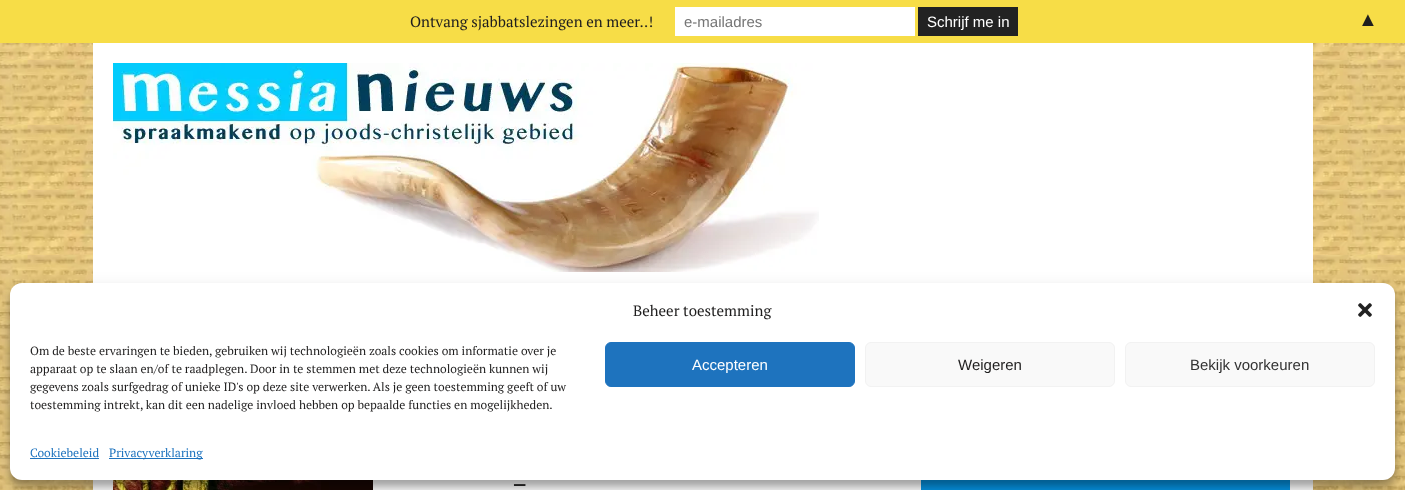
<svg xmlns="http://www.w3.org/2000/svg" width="1405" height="490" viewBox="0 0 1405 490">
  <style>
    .t1 { font: 15px PT Serif; fill: #1f1e1e; }
    .t2 { font: 15px Liberation Sans; fill: #757575; }
    .t3 { font: 15px Liberation Sans; fill: #fff; }
    .t4 { font: 20px Liberation Serif; fill: #1f1e1e; }
    .t5 { font: 12px PT Serif; fill: #1f1e1e; }
    .t6 { font: 15px Liberation Sans; fill: #1f1e1e; }
    .t7 { font: 15px Liberation Sans; fill: #333; }
    .t8 { font: 12px PT Serif; fill: #1e73be; }
    .t9 { font: 24px Oswald; fill: #1f1e1e; }
  </style>
  <rect width="100%" height="100%" fill="#fff"/>
  <image x="0" y="43" width="1405" height="447" href="images/1.png"/>
  <rect x="0" y="0" width="1405" height="43" fill="#f7dd47"/>
  <text x="410" y="27" class="t1">Ontvang sjabbatslezingen en meer..!</text>
  <rect x="675" y="7" width="240" height="29" fill="#fff"/>
  <text x="684" y="27" class="t2">e-mailadres</text>
  <rect x="918" y="7" width="100" height="29" fill="#222"/>
  <text x="927" y="27" class="t3">Schrijf me in</text>
  <text x="1358" y="26" class="t4">▲</text>
  <rect x="93" y="43" width="1220" height="447" fill="#fff"/>
  <image x="113" y="480" width="260" height="10" href="images/4.png"/>
  <rect x="921" y="480" width="369" height="10" fill="#0693e3"/>
  <rect x="10" y="289" width="1385" height="197" rx="12" fill="#0000003b" filter="blur(3px)"/>
  <image x="113" y="63" width="706" height="209" href="images/3.png"/>
  <rect x="10" y="293" width="1385" height="197" rx="12" fill="#00000030" filter="blur(10px)"/>
  <rect x="10" y="283" width="1385" height="197" rx="12" fill="#fff"/>
  <text x="633" y="316" class="t1">Beheer toestemming</text>
  <image x="1358" y="303" width="14" height="14" href="images/2.png"/>
  <text x="30" y="355" class="t5">Om de beste ervaringen te bieden, gebruiken wij technologieën zoals cookies om informatie over je</text>
  <text x="30" y="373" class="t5">apparaat op te slaan en/of te raadplegen. Door in te stemmen met deze technologieën kunnen wij</text>
  <text x="30" y="391" class="t5">gegevens zoals surfgedrag of unieke ID's op deze site verwerken. Als je geen toestemming geeft of uw</text>
  <text x="30" y="409" class="t5">toestemming intrekt, kan dit een nadelige invloed hebben op bepaalde functies en mogelijkheden.</text>
  <rect x="605.5" y="342.5" width="249" height="44" rx="5.5" fill="#1e73be" stroke="#1e73be"/>
  <text x="692" y="370" class="t3">Accepteren</text>
  <rect x="865.5" y="342.5" width="249" height="44" rx="5.5" fill="#f9f9f9" stroke="#f2f2f2"/>
  <text x="958" y="370" class="t6">Weigeren</text>
  <rect x="1125.5" y="342.5" width="249" height="44" rx="5.5" fill="#f9f9f9" stroke="#f2f2f2"/>
  <text x="1190" y="370" class="t7">Bekijk voorkeuren</text>
  <text x="30" y="457" class="t8">Cookiebeleid</text>
  <rect x="30" y="458" width="69" height="1" fill="#1e73be"/>
  <rect x="109" y="458" width="94" height="1" fill="#1e73be"/>
  <text x="109" y="457" class="t8">Privacyverklaring</text>
  <text x="513" y="492" class="t9">–</text>
</svg>
